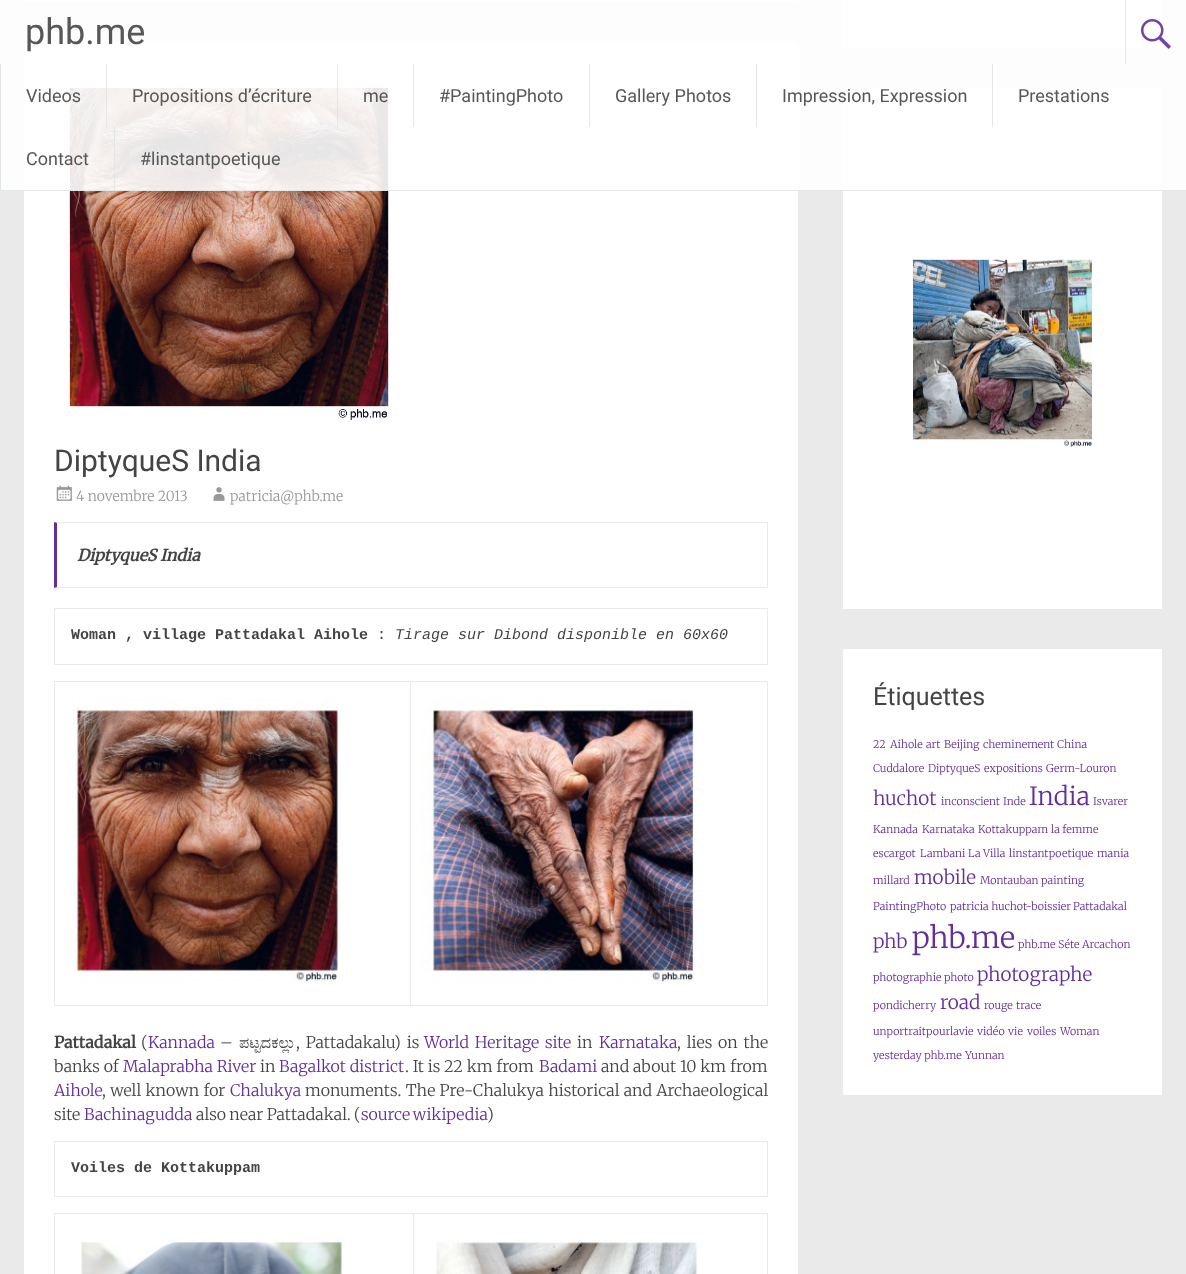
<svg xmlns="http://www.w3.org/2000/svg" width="1186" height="1274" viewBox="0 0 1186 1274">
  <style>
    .t1 { font: 36px Roboto; fill: #575757; }
    .t2 { font: 18px Roboto; fill: #575757; }
    .t3 { font: 30px Roboto; fill: #444; }
    .t4 { font: 300 14px Merriweather; fill: #999; }
    .t5 { font: italic bold 16px Merriweather; fill: #444; }
    .t6 { font: bold 15px Liberation Mono; fill: #444; }
    .t7 { font: 15px Liberation Mono; fill: #444; }
    .t8 { font: italic 15px Liberation Mono; fill: #444; }
    .t9 { font: bold 16px Merriweather; fill: #444; }
    .t10 { font: 300 16px Merriweather; fill: #444; }
    .t11 { font: 300 16px Merriweather; fill: #632e9b; }
    .t12 { font: 16px FreeSerif; fill: #444; }
    .t13 { font: 25px Roboto; fill: #444; }
    .t14 { font: 300 10.75px Merriweather; fill: #632e9b; }
    .t15 { font: 300 19px Merriweather; fill: #632e9b; }
    .t16 { font: 300 25px Merriweather; fill: #632e9b; }
    .t17 { font: 300 29.5px Merriweather; fill: #632e9b; }
  </style>
  <rect width="100%" height="100%" fill="#eaeaea"/>
  <rect x="24" y="0" width="774" height="2" fill="#fff"/>
  <rect x="24" y="42" width="774" height="1232" fill="#fff"/>
  <image x="69" y="87" width="320" height="333" href="images/2.png"/>
  <rect x="843" y="0" width="319" height="48" fill="#fff"/>
  <rect x="843" y="88" width="319" height="521" fill="#fff"/>
  <rect x="0" y="0" width="1186" height="191" fill="#ffffffe6"/>
  <rect x="0" y="190" width="1186" height="1" fill="#e1e4e6e6"/>
  <text x="25" y="44" class="t1">phb.me</text>
  <rect x="1125" y="0" width="1" height="64" fill="#e4e7e8"/>
  <image x="1141" y="19" width="30" height="30" href="images/1.png"/>
  <rect x="0" y="64" width="1" height="126" fill="#e2e5e6"/>
  <text x="26" y="102" class="t2">Videos</text>
  <rect x="106" y="64" width="1" height="63" fill="#e1e4e6e6"/>
  <text x="132" y="102" class="t2">Propositions d’écriture</text>
  <rect x="337" y="64" width="1" height="63" fill="#e1e4e6e6"/>
  <text x="363" y="102" class="t2">me</text>
  <rect x="413" y="64" width="1" height="63" fill="#e4e7e9"/>
  <text x="439" y="102" class="t2">#PaintingPhoto</text>
  <rect x="589" y="64" width="1" height="63" fill="#e4e7e9"/>
  <text x="615" y="102" class="t2">Gallery Photos</text>
  <rect x="756" y="64" width="1" height="63" fill="#e4e7e9"/>
  <text x="782" y="102" class="t2">Impression, Expression</text>
  <rect x="992" y="64" width="1" height="63" fill="#e4e7e8"/>
  <text x="1018" y="102" class="t2">Prestations</text>
  <text x="26" y="165" class="t2">Contact</text>
  <rect x="114" y="127" width="1" height="63" fill="#e1e4e6e6"/>
  <text x="140" y="165" class="t2">#linstantpoetique</text>
  <text x="54" y="471" class="t3">DiptyqueS India</text>
  <image x="56" y="485" width="16" height="16" href="images/3.png"/>
  <text x="76" y="501" class="t4">4 novembre 2013</text>
  <image x="213" y="487" width="12" height="14" href="images/4.png"/>
  <text x="230" y="501" class="t4">patricia@phb.me</text>
  <path d="M54 522H768L767 523H57Z" fill="#eaeaea"/>
  <rect x="767" y="522" width="1" height="66" fill="#eaeaea"/>
  <path d="M768 588H54L57 587H767Z" fill="#eaeaea"/>
  <path d="M54 588V522L57 523V587Z" fill="#632e9b"/>
  <text x="77" y="561" class="t5">DiptyqueS India</text>
  <rect x="54.5" y="608.5" width="713" height="56" fill="none" stroke="#eaeaea"/>
  <text x="71" y="639" class="t6">Woman , village Pattadakal Aihole</text>
  <text x="377" y="639" class="t7">:</text>
  <text x="395" y="639" class="t8">Tirage sur Dibond disponible en 60x60</text>
  <rect x="410" y="681" width="358" height="1" fill="#eaeaea"/>
  <rect x="767" y="681" width="1" height="325" fill="#eaeaea"/>
  <rect x="410" y="1005" width="358" height="1" fill="#eaeaea"/>
  <rect x="410" y="681" width="1" height="325" fill="#eaeaea"/>
  <rect x="54" y="681" width="357" height="1" fill="#eaeaea"/>
  <rect x="54" y="1005" width="357" height="1" fill="#eaeaea"/>
  <rect x="54" y="681" width="1" height="325" fill="#eaeaea"/>
  <image x="65" y="698" width="274" height="285" href="images/5.png"/>
  <image x="421" y="698" width="274" height="285" href="images/6.png"/>
  <text x="54" y="1048" class="t9">Pattadakal</text>
  <text x="141" y="1048" class="t10">(</text>
  <text x="148" y="1048" class="t11">Kannada</text>
  <text x="220" y="1048" class="t10">–</text>
  <text x="239" y="1048" class="t12">ಪಟ್ಟದಕಲ್ಲು</text>
  <text x="296" y="1048" word-spacing="2" class="t10">, Pattadakalu) is</text>
  <text x="424" y="1048" word-spacing="2" class="t11">World Heritage site</text>
  <text x="577" y="1048" class="t10">in</text>
  <text x="599" y="1048" class="t11">Karnataka</text>
  <text x="677" y="1048" word-spacing="2" class="t10">, lies on the</text>
  <text x="54" y="1072" class="t10">banks of</text>
  <text x="123" y="1072" class="t11">Malaprabha River</text>
  <text x="260" y="1072" class="t10">in</text>
  <text x="279" y="1072" class="t11">Bagalkot district</text>
  <text x="405" y="1072" class="t10">. It is 22 km from</text>
  <text x="539" y="1072" class="t11">Badami</text>
  <text x="601" y="1072" class="t10">and about 10 km from</text>
  <text x="54" y="1096" class="t11">Aihole</text>
  <text x="102" y="1096" word-spacing="0.5" class="t10">, well known for</text>
  <text x="230" y="1096" class="t11">Chalukya</text>
  <text x="305" y="1096" word-spacing="0.5" class="t10">monuments. The Pre-Chalukya historical and Archaeological</text>
  <text x="54" y="1120" class="t10">site</text>
  <text x="84" y="1120" class="t11">Bachinagudda</text>
  <text x="196" y="1120" word-spacing="-0.5" class="t10">also near Pattadakal. (</text>
  <text x="361" y="1120" word-spacing="-1" class="t11">source wikipedia</text>
  <text x="487" y="1120" class="t10">)</text>
  <rect x="54.5" y="1141.5" width="713" height="55" fill="none" stroke="#eaeaea"/>
  <text x="71" y="1172" class="t6">Voiles de Kottakuppam</text>
  <rect x="413" y="1213" width="355" height="1" fill="#eaeaea"/>
  <rect x="413" y="1213" width="1" height="61" fill="#eaeaea"/>
  <rect x="54" y="1213" width="360" height="1" fill="#eaeaea"/>
  <rect x="54" y="1213" width="1" height="61" fill="#eaeaea"/>
  <image x="80" y="1238" width="263" height="36" href="images/7.png"/>
  <rect x="767" y="1213" width="1" height="61" fill="#eaeaea"/>
  <image x="436" y="1239" width="262" height="35" href="images/8.png"/>
  <image x="913" y="259" width="179" height="188" href="images/9.png"/>
  <rect x="843" y="649" width="319" height="446" fill="#fff"/>
  <text x="873" y="705" class="t13">Étiquettes</text>
  <text x="873" y="748" class="t14">22</text>
  <text x="890" y="748" class="t14">Aihole</text>
  <text x="926" y="748" class="t14">art</text>
  <text x="944" y="748" class="t14">Beijing</text>
  <text x="983" y="748" class="t14">cheminement</text>
  <text x="1057" y="748" class="t14">China</text>
  <text x="873" y="772" class="t14">Cuddalore</text>
  <text x="928" y="772" class="t14">DiptyqueS</text>
  <text x="984" y="772" class="t14">expositions</text>
  <text x="1046" y="772" class="t14">Germ-Louron</text>
  <text x="873" y="805" class="t15">huchot</text>
  <text x="941" y="805" class="t14">inconscient</text>
  <text x="1003" y="805" class="t14">Inde</text>
  <text x="1029" y="805" class="t16">India</text>
  <text x="1093" y="805" class="t14">Isvarer</text>
  <text x="873" y="833" class="t14">Kannada</text>
  <text x="922" y="833" class="t14">Karnataka</text>
  <text x="978" y="833" class="t14">Kottakuppam</text>
  <text x="1051" y="833" class="t14">la femme</text>
  <text x="873" y="857" class="t14">escargot</text>
  <text x="920" y="857" class="t14">Lambani</text>
  <text x="968" y="857" class="t14">La Villa</text>
  <text x="1009" y="857" class="t14">linstantpoetique</text>
  <text x="1097" y="857" class="t14">mania</text>
  <text x="873" y="884" class="t14">millard</text>
  <text x="914" y="884" class="t15">mobile</text>
  <text x="980" y="884" class="t14">Montauban</text>
  <text x="1041" y="884" class="t14">painting</text>
  <text x="873" y="910" class="t14">PaintingPhoto</text>
  <text x="950" y="910" class="t14">patricia huchot-boissier</text>
  <text x="1073" y="910" class="t14">Pattadakal</text>
  <text x="873" y="948" class="t15">phb</text>
  <text x="912" y="948" class="t17">phb.me</text>
  <text x="1018" y="948" class="t14">phb.me Séte Arcachon</text>
  <text x="873" y="981" class="t14">photographie photo</text>
  <text x="977" y="981" class="t15">photographe</text>
  <text x="873" y="1009" class="t14">pondicherry</text>
  <text x="940" y="1009" class="t15">road</text>
  <text x="984" y="1009" class="t14">rouge</text>
  <text x="1016" y="1009" class="t14">trace</text>
  <text x="873" y="1035" class="t14">unportraitpourlavie</text>
  <text x="977" y="1035" class="t14">vidéo</text>
  <text x="1008" y="1035" class="t14">vie</text>
  <text x="1027" y="1035" class="t14">voiles</text>
  <text x="1060" y="1035" class="t14">Woman</text>
  <text x="873" y="1059" class="t14">yesterday phb.me</text>
  <text x="965" y="1059" class="t14">Yunnan</text>
</svg>
